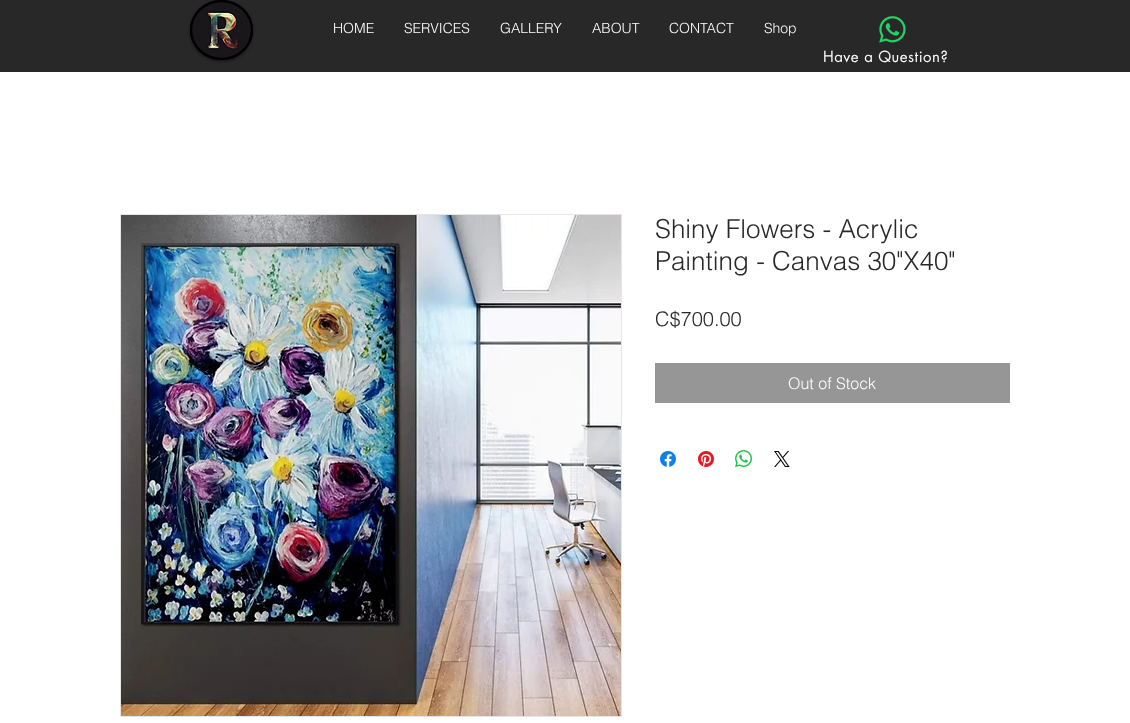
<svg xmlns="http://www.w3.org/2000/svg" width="1130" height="723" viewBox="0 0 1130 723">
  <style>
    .t1 { font: 300 14px helvetica; fill: #fff; }
    .t2 { font: 15px futura; letter-spacing: 0.5px; fill: #fff; }
    .t3 { font: 300 26px helvetica; fill: #282828; }
    .t4 { font: 300 20px helvetica; fill: #282828; }
    .t5 { font: 300 16px helvetica; fill: #fff; }
  </style>
  <rect width="100%" height="100%" fill="#fff"/>
  <rect x="0" y="0" width="1130" height="72" fill="#282828"/>
  <rect x="190" y="1" width="63" height="60" rx="30" fill="#00000080" filter="blur(1.5px)"/>
  <ellipse cx="221.5" cy="30" rx="31.5" ry="30" fill="#000"/>
  <path d="M221.5 1C238.5 1 252 14 252 30C252 46 238.5 59 221.5 59C204.5 59 191 46 191 30C191 14 204.5 1 221.5 1Z" fill="none" stroke="#000" stroke-width="2"/>
  <image x="192" y="2" width="59" height="56" href="images/1.png"/>
  <text x="333" y="33" class="t1">HOME</text>
  <text x="404" y="33" class="t1">SERVICES</text>
  <text x="500" y="33" class="t1">GALLERY</text>
  <text x="592" y="33" class="t1">ABOUT</text>
  <text x="669" y="33" class="t1">CONTACT</text>
  <text x="764" y="33" class="t1">Shop</text>
  <image x="879" y="16" width="27" height="27" href="images/2.png"/>
  <text x="823" y="62" class="t2">Have a Question?</text>
  <rect x="120.5" y="214.5" width="501" height="502" fill="none" stroke="#e6e6e6"/>
  <image x="121" y="215" width="500" height="501" href="images/3.png"/>
  <text x="655" y="238" class="t3">Shiny Flowers - Acrylic</text>
  <text x="655" y="270" class="t3">Painting - Canvas 30"X40"</text>
  <text x="655" y="326" class="t4">C$700.00</text>
  <rect x="655" y="363" width="355" height="40" fill="#969696"/>
  <text x="788" y="389" class="t5">Out of Stock</text>
  <image x="660" y="451" width="16" height="16" href="images/4.png"/>
  <image x="698" y="451" width="16" height="16" href="images/5.png"/>
  <image x="735" y="450" width="17" height="17" href="images/6.png"/>
  <image x="774" y="451" width="16" height="16" href="images/7.png"/>
</svg>
